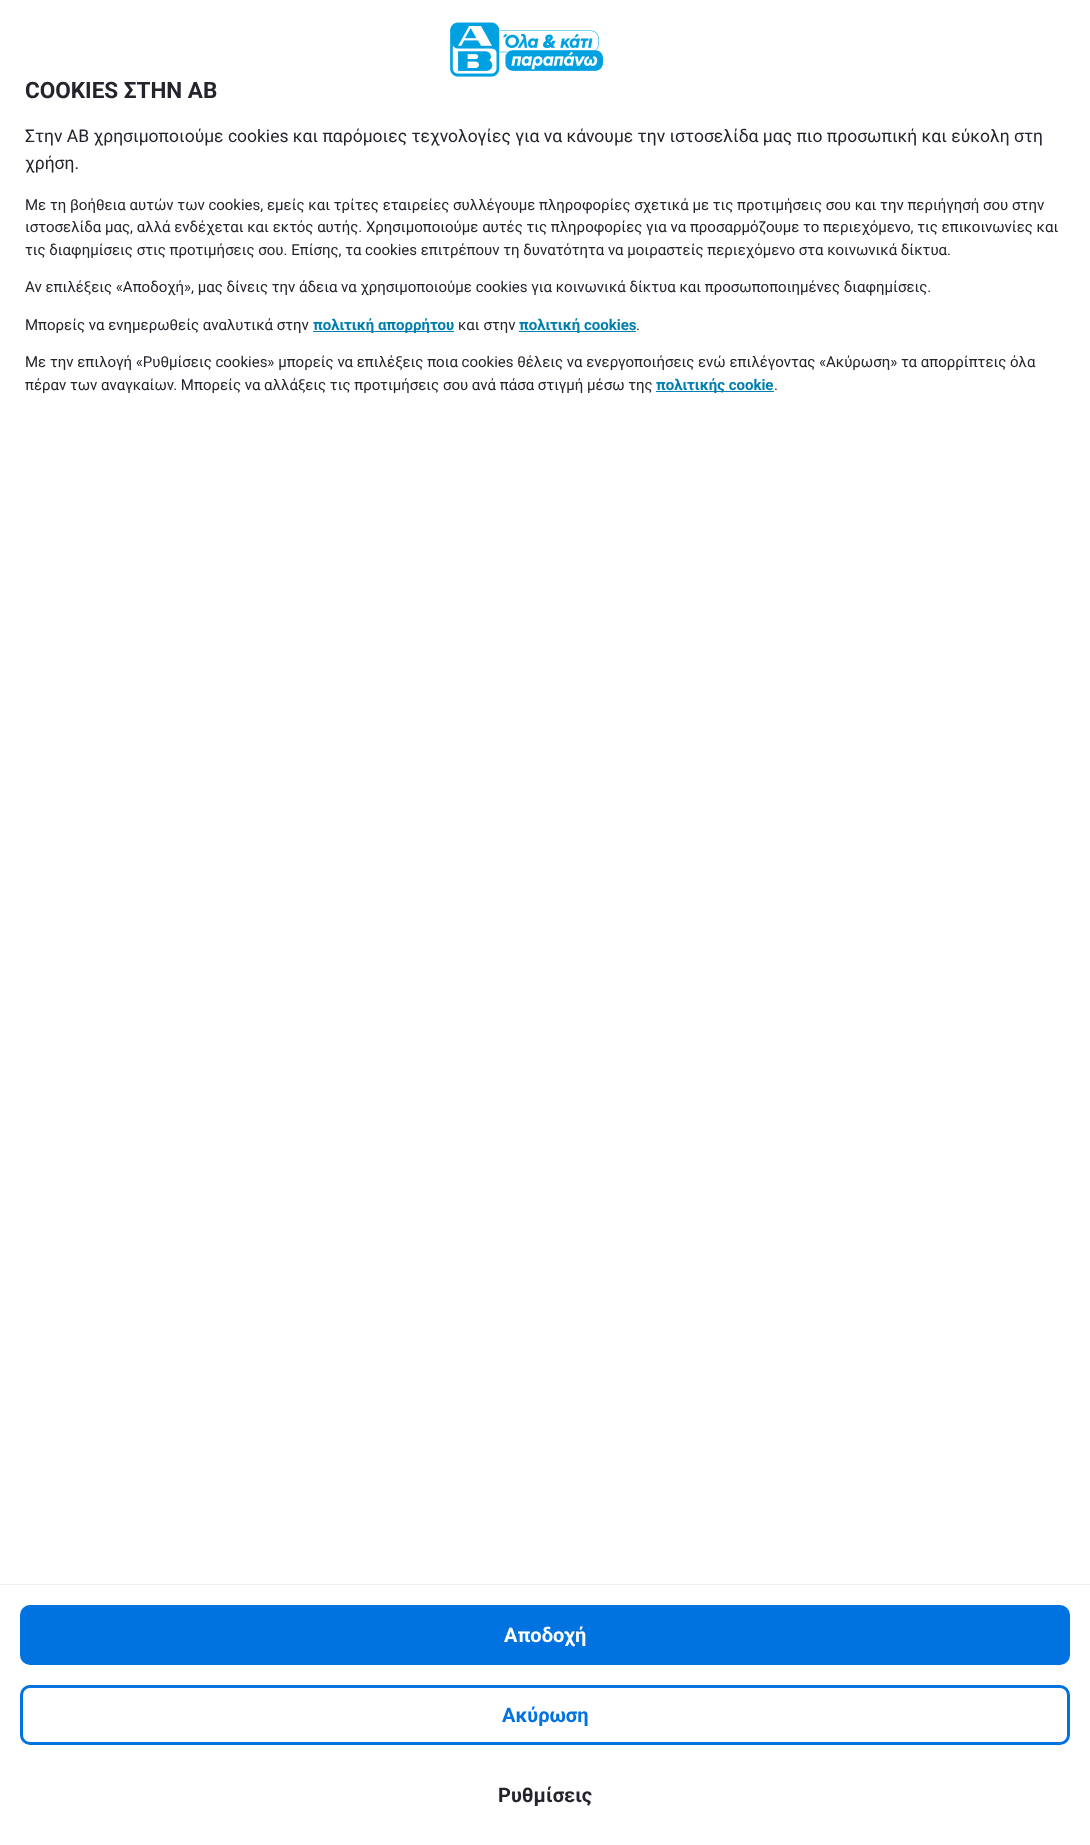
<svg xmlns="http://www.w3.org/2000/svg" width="1090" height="1845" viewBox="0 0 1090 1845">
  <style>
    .t1 { font: bold 22.5px Roboto; fill: #25232c; }
    .t2 { font: 17.5px Roboto; fill: #25232c; }
    .t3 { font: 15px Roboto; fill: #25232c; }
    .t4 { font: bold 15px Roboto; fill: #007ead; }
    .t5 { font: bold 20px Roboto; fill: #fff; }
    .t6 { font: bold 20px Roboto; fill: #0073e1; }
    .t7 { font: bold 20px Roboto; fill: #25232c; }
  </style>
  <rect width="100%" height="100%" fill="#fff"/>
  <image x="450" y="22" width="153" height="55" href="images/1.png"/>
  <text x="25" y="98" class="t1">COOKIES ΣΤΗΝ ΑΒ</text>
  <text x="25" y="142" class="t2">Στην ΑΒ χρησιμοποιούμε cookies και παρόμοιες τεχνολογίες για να κάνουμε την ιστοσελίδα μας πιο προσωπική και εύκολη στη</text>
  <text x="25" y="169" class="t2">χρήση.</text>
  <text x="25" y="210" class="t3">Με τη βοήθεια αυτών των cookies, εμείς και τρίτες εταιρείες συλλέγουμε πληροφορίες σχετικά με τις προτιμήσεις σου και την περιήγησή σου στην</text>
  <text x="25" y="232" class="t3">ιστοσελίδα μας, αλλά ενδέχεται και εκτός αυτής. Χρησιμοποιούμε αυτές τις πληροφορίες για να προσαρμόζουμε το περιεχόμενο, τις επικοινωνίες και</text>
  <text x="25" y="255" class="t3">τις διαφημίσεις στις προτιμήσεις σου. Επίσης, τα cookies επιτρέπουν τη δυνατότητα να μοιραστείς περιεχόμενο στα κοινωνικά δίκτυα.</text>
  <text x="25" y="292" class="t3">Αν επιλέξεις «Αποδοχή», μας δίνεις την άδεια να χρησιμοποιούμε cookies για κοινωνικά δίκτυα και προσωποποιημένες διαφημίσεις.</text>
  <text x="25" y="330" class="t3">Μπορείς να ενημερωθείς αναλυτικά στην</text>
  <rect x="313" y="331" width="141" height="1" fill="#007ead"/>
  <text x="313" y="330" class="t4">πολιτική απορρήτου</text>
  <text x="458" y="330" class="t3">και στην</text>
  <rect x="519" y="331" width="117" height="1" fill="#007ead"/>
  <text x="519" y="330" class="t4">πολιτική cookies</text>
  <text x="636" y="330" class="t3">.</text>
  <text x="25" y="367" class="t3">Με την επιλογή «Ρυθμίσεις cookies» μπορείς να επιλέξεις ποια cookies θέλεις να ενεργοποιήσεις ενώ επιλέγοντας «Ακύρωση» τα απορρίπτεις όλα</text>
  <text x="25" y="390" class="t3">πέραν των αναγκαίων. Μπορείς να αλλάξεις τις προτιμήσεις σου ανά πάσα στιγμή μέσω της</text>
  <rect x="656" y="391" width="118" height="1" fill="#007ead"/>
  <text x="656" y="390" class="t4">πολιτικής cookie</text>
  <text x="774" y="390" class="t3">.</text>
  <rect x="0" y="1584" width="1090" height="1" fill="#efefef"/>
  <rect x="21.5" y="1606.5" width="1047" height="57" rx="8.5" fill="#0073e1" stroke="#0073e1" stroke-width="3"/>
  <text x="504" y="1642" class="t5">Αποδοχή</text>
  <rect x="21.5" y="1686.5" width="1047" height="57" rx="8.5" fill="none" stroke="#0073e1" stroke-width="3"/>
  <text x="502" y="1722" class="t6">Ακύρωση</text>
  <text x="498" y="1802" class="t7">Ρυθμίσεις</text>
</svg>
